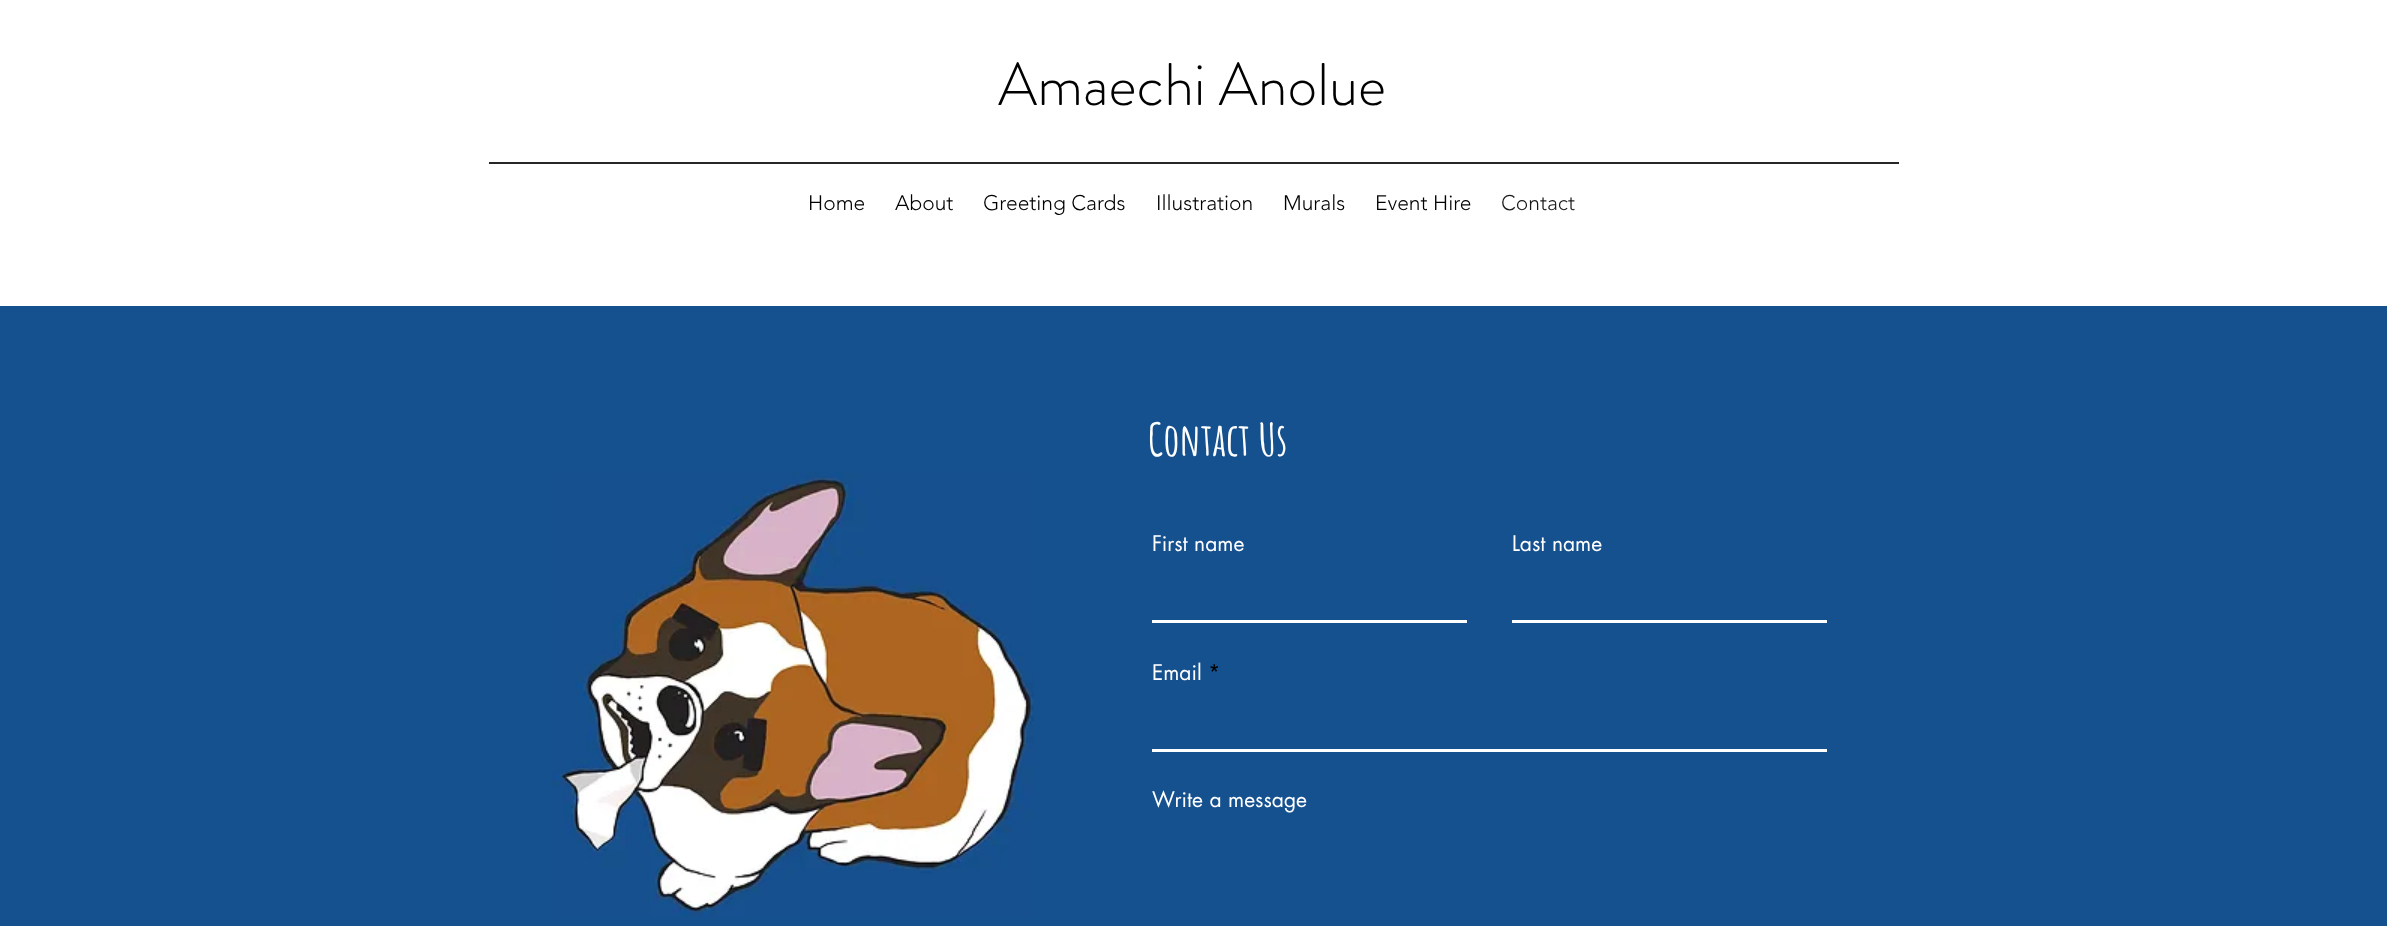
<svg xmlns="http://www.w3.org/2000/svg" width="2387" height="926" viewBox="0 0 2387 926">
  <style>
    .t1 { font: 300 60px 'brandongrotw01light'; fill: #000; }
    .t2 { font: 300 21px 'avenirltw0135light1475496'; fill: #000; }
    .t3 { font: 300 21px 'avenirltw0135light1475496'; fill: #191919; }
    .t4 { font: bold 45px Amatic SC; fill: #fff; }
    .t5 { font: 21px futura; fill: #fff; }
    .t6 { font: 21px futura; fill: #000; }
  </style>
  <rect width="100%" height="100%" fill="#fff"/>
  <text x="998" y="105" class="t1">Amaechi Anolue</text>
  <rect x="489" y="162" width="1410" height="2" fill="#262626"/>
  <text x="808" y="210" class="t2">Home</text>
  <text x="895" y="210" class="t2">About</text>
  <text x="983" y="210" class="t2">Greeting Cards</text>
  <text x="1156" y="210" class="t2">Illustration</text>
  <text x="1283" y="210" class="t2">Murals</text>
  <text x="1375" y="210" class="t2">Event Hire</text>
  <text x="1501" y="210" class="t3">Contact</text>
  <rect x="0" y="306" width="2387" height="620" fill="#16518f"/>
  <image x="552" y="472" width="482" height="445" href="images/1.png"/>
  <text x="1148" y="456" class="t4">Contact Us</text>
  <text x="1152" y="551" class="t5">First name</text>
  <rect x="1152" y="620" width="315" height="3" fill="#fff"/>
  <text x="1512" y="551" class="t5">Last name</text>
  <rect x="1512" y="620" width="315" height="3" fill="#fff"/>
  <text x="1152" y="680" class="t5">Email</text>
  <text x="1208" y="680" class="t6">*</text>
  <rect x="1152" y="749" width="675" height="3" fill="#fff"/>
  <text x="1152" y="807" class="t5">Write a message</text>
</svg>
